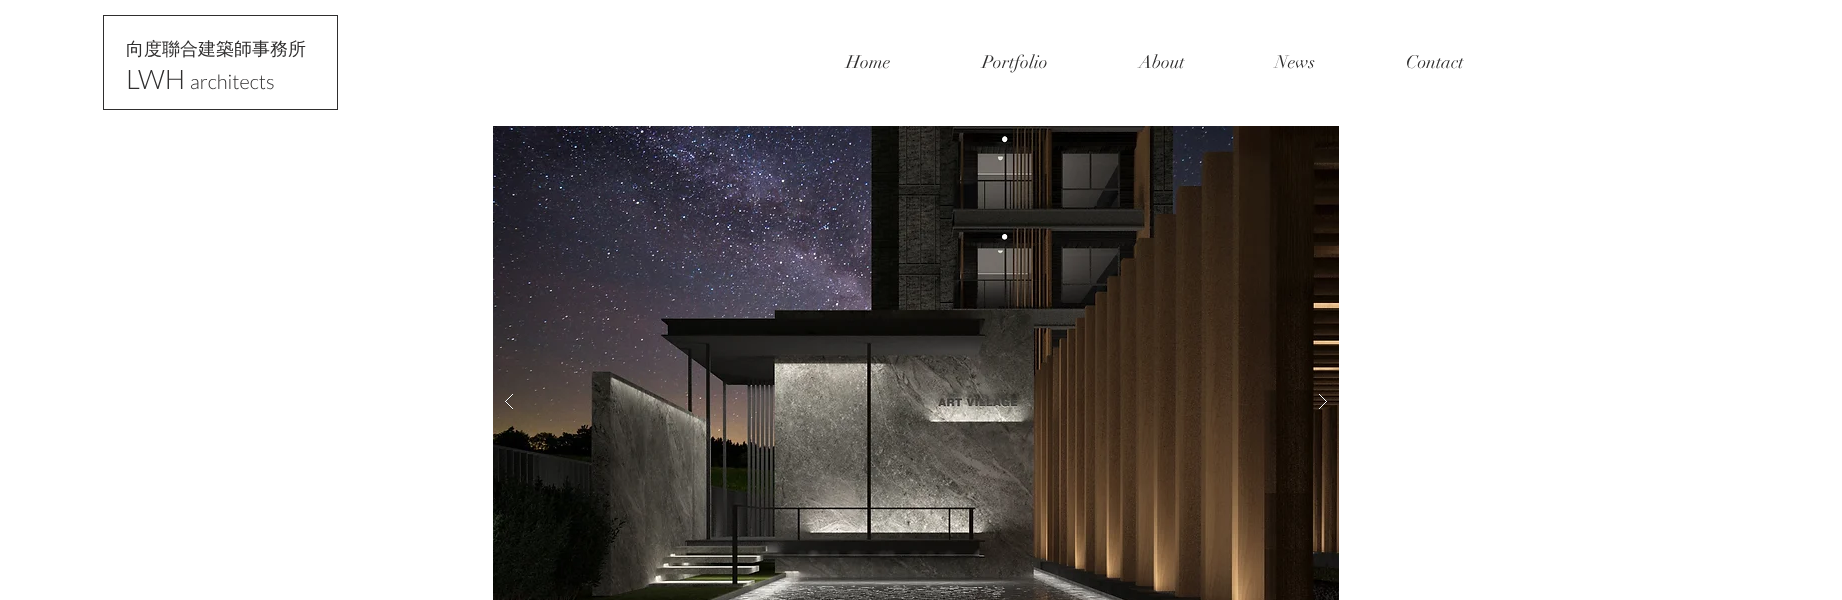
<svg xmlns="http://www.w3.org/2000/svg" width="1842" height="600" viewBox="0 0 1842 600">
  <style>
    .t1 { font: 500 18px WenQuanYi Zen Hei; fill: #2f2e2e; }
    .t2 { font: 300 27px Lato; fill: #2f2e2e; }
    .t3 { font: 300 20px Lato; fill: #2f2e2e; }
    .t4 { font: 18px didot; fill: #2f2e2e; }
  </style>
  <rect width="100%" height="100%" fill="#fff"/>
  <rect x="103.5" y="15.5" width="234" height="94" fill="none" stroke="#2f2e2e"/>
  <text x="126" y="55" class="t1">向度聯合建築師事務所</text>
  <text x="126" y="89" class="t2">LWH</text>
  <text x="190" y="89" class="t3">architects</text>
  <text x="846" y="68" class="t4">Home</text>
  <text x="982" y="68" class="t4">Portfolio</text>
  <text x="1139" y="68" class="t4">About</text>
  <text x="1275" y="68" class="t4">News</text>
  <text x="1406" y="68" class="t4">Contact</text>
  <image x="493" y="126" width="846" height="474" href="images/1.png"/>
  <image x="505" y="394" width="8" height="16" href="images/2.png"/>
  <image x="1319" y="394" width="8" height="16" href="images/3.png"/>
</svg>
